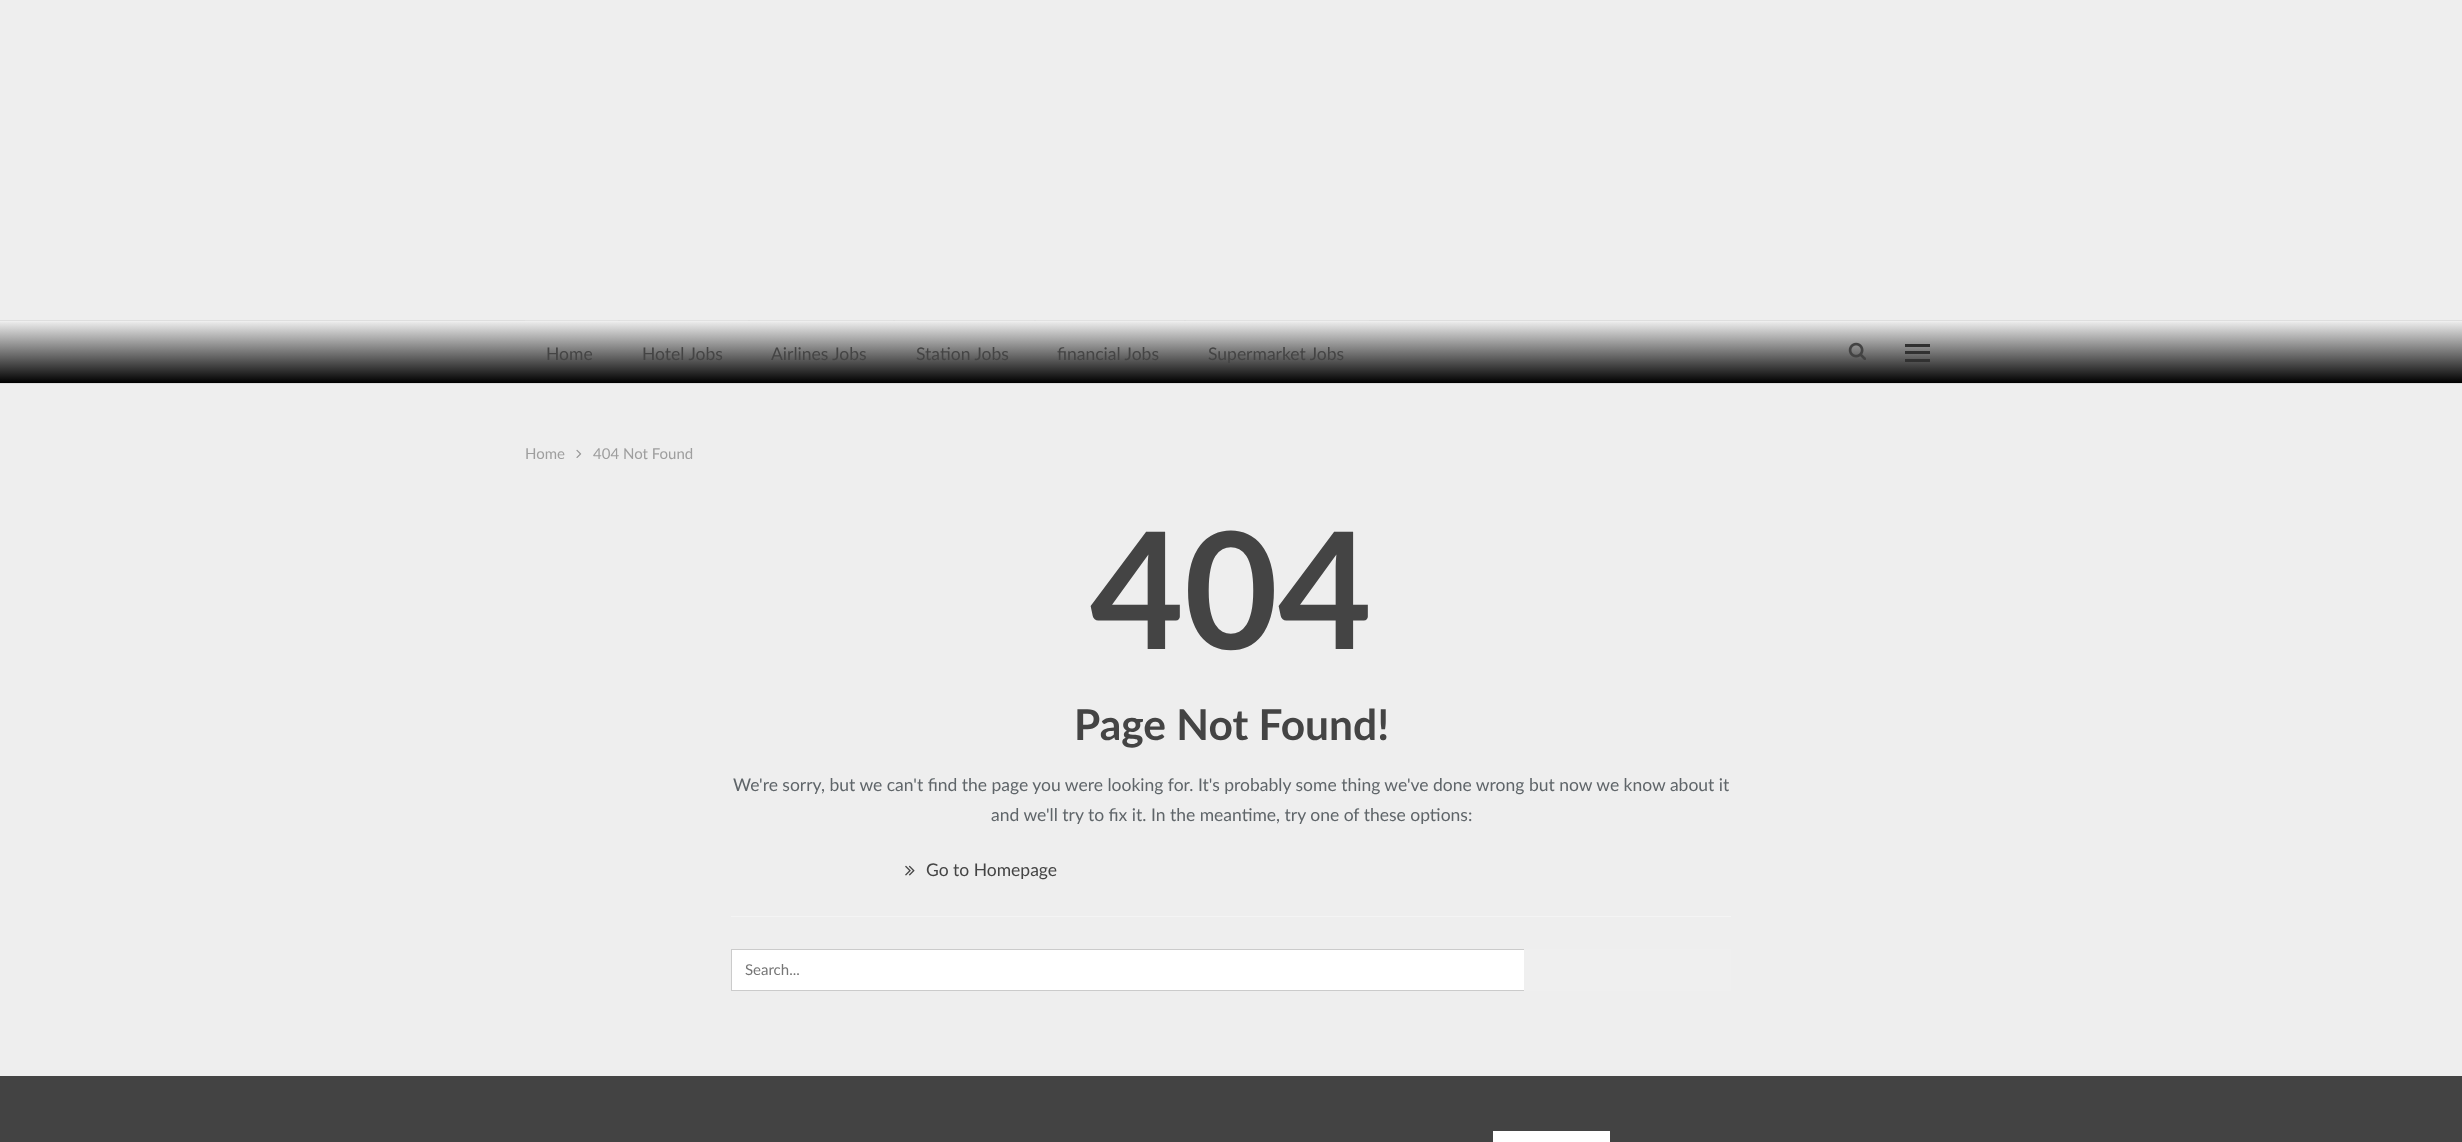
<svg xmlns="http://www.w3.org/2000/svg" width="2462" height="1142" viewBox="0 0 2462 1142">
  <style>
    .t1 { font: 17.5px Lato; fill: #444; }
    .t2 { font: 15px Lato; fill: #9e9e9e; }
    .t3 { font: bold 162px Lato; fill: #444; }
    .t4 { font: bold 42.5px Lato; fill: #444; }
    .t5 { font: 17.5px Lato; fill: #5f6569; }
    .t6 { font: 15px Lato; fill: #757575; }
  </style>
  <defs>
    <linearGradient id="g1" gradientUnits="userSpaceOnUse" x1="1231" y1="321" x2="1231" y2="383"><stop offset="0" stop-color="#eee"/><stop offset="1" stop-color="#000"/></linearGradient>
  </defs>
  <rect width="100%" height="100%" fill="#eee"/>
  <rect x="0" y="322" width="2462" height="61" fill="url(#g1)"/>
  <rect x="0" y="320" width="2462" height="1" fill="#dedede"/>
  <rect x="0" y="383" width="2462" height="1" fill="#dedede"/>
  <rect x="525" y="320" width="93" height="1" fill="#e1e1e1"/>
  <text x="546" y="360" class="t1">Home</text>
  <rect x="620" y="320" width="128" height="1" fill="#e1e1e1"/>
  <text x="642" y="360" class="t1">Hotel Jobs</text>
  <rect x="750" y="320" width="143" height="1" fill="#e1e1e1"/>
  <text x="771" y="360" class="t1">Airlines Jobs</text>
  <rect x="895" y="320" width="139" height="1" fill="#e1e1e1"/>
  <text x="916" y="360" class="t1">Station Jobs</text>
  <rect x="1036" y="320" width="148" height="1" fill="#e1e1e1"/>
  <text x="1057" y="360" class="t1">financial Jobs</text>
  <rect x="1186" y="320" width="183" height="1" fill="#e1e1e1"/>
  <text x="1208" y="360" class="t1">Supermarket Jobs</text>
  <image x="1848" y="342" width="18" height="18" href="images/1.png"/>
  <rect x="1905" y="351" width="25" height="3" fill="#313131"/>
  <rect x="1905" y="344" width="25" height="3" fill="#313131"/>
  <rect x="1905" y="359" width="25" height="3" fill="#313131"/>
  <text x="525" y="459" class="t2">Home</text>
  <image x="576" y="449" width="6" height="9" href="images/2.png"/>
  <text x="593" y="459" class="t2">404 Not Found</text>
  <text x="1090" y="649" class="t3">404</text>
  <text x="1074" y="740" class="t4">Page Not Found!</text>
  <text x="733" y="791" class="t5">We're sorry, but we can't find the page you were looking for. It's probably some thing we've done wrong but now we know about it</text>
  <text x="991" y="821" class="t5">and we'll try to fix it. In the meantime, try one of these options:</text>
  <image x="905" y="865" width="10" height="11" href="images/3.png"/>
  <text x="926" y="876" class="t1">Go to Homepage</text>
  <rect x="731" y="916" width="1000" height="1" fill="#f4f4f4"/>
  <rect x="732" y="950" width="792" height="40" fill="#fff"/>
  <rect x="731.5" y="949.5" width="999" height="41" fill="none" stroke="#cbcbcb"/>
  <text x="745" y="975" class="t6">Search...</text>
  <rect x="1524" y="949" width="207" height="42" fill="#efefef"/>
  <rect x="0" y="1076" width="2462" height="66" fill="#434343"/>
  <rect x="1493" y="1131" width="117" height="11" fill="#fff"/>
</svg>
